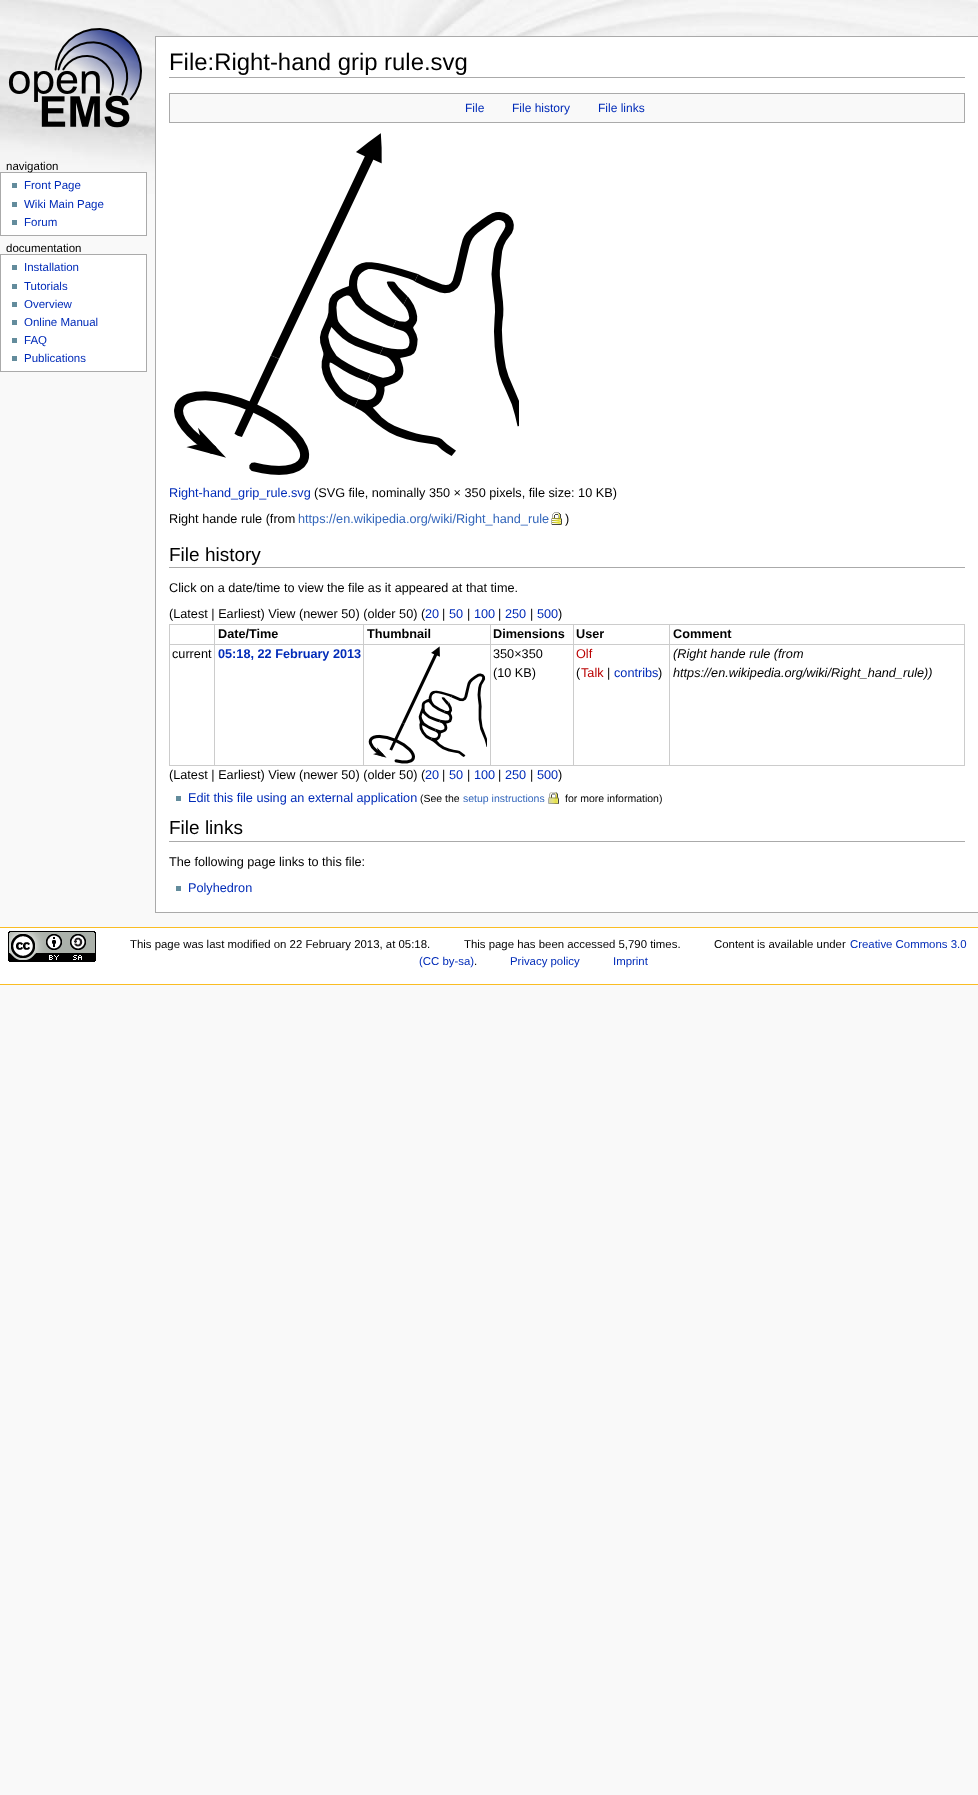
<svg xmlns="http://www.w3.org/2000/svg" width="978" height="1795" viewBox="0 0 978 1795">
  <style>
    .t1 { font: 11.5px Liberation Sans; fill: #000; }
    .t2 { font: 11.5px Liberation Sans; fill: #002bb8; }
    .t3 { font: 23.9px Liberation Sans; fill: #000; }
    .t4 { font: 12px Liberation Sans; fill: #002bb8; }
    .t5 { font: 12.7px Liberation Sans; fill: #002bb8; }
    .t6 { font: 12.7px Liberation Sans; fill: #000; }
    .t7 { font: 12.7px Liberation Sans; fill: #36b; }
    .t8 { font: 19px Liberation Sans; fill: #000; }
    .t9 { font: bold 12.7px Liberation Sans; fill: #000; }
    .t10 { font: bold 12.7px Liberation Sans; fill: #002bb8; }
    .t11 { font: 12.7px Liberation Sans; fill: #ba0000; }
    .t12 { font: italic 12.7px Liberation Sans; fill: #000; }
    .t13 { font: 10.5px Liberation Sans; fill: #000; }
    .t14 { font: 10.5px Liberation Sans; fill: #36b; }
    .t15 { font: 11.4px Liberation Sans; fill: #000; }
    .t16 { font: 11.4px Liberation Sans; fill: #002bb8; }
  </style>
  <rect width="100%" height="100%" fill="#f9f9f9"/>
  <image x="0" y="0" width="978" height="194" href="images/1.png"/>
  <image x="8" y="28" width="134" height="100" href="images/2.png"/>
  <rect x="0.5" y="172.5" width="146" height="63" fill="#fff" stroke="#aaa"/>
  <text x="6" y="170" class="t1">navigation</text>
  <rect x="12" y="183" width="5" height="5" fill="#638c9c"/>
  <text x="24" y="189" class="t2">Front Page</text>
  <rect x="12" y="202" width="5" height="5" fill="#638c9c"/>
  <text x="24" y="208" class="t2">Wiki Main Page</text>
  <rect x="12" y="220" width="5" height="5" fill="#638c9c"/>
  <text x="24" y="226" class="t2">Forum</text>
  <text x="6" y="252" class="t1">documentation</text>
  <rect x="0.5" y="254.5" width="146" height="117" fill="#fff" stroke="#aaa"/>
  <rect x="12" y="265" width="5" height="5" fill="#638c9c"/>
  <text x="24" y="271" class="t2">Installation</text>
  <rect x="12" y="284" width="5" height="5" fill="#638c9c"/>
  <text x="24" y="290" class="t2">Tutorials</text>
  <rect x="12" y="302" width="5" height="5" fill="#638c9c"/>
  <text x="24" y="308" class="t2">Overview</text>
  <rect x="12" y="320" width="5" height="5" fill="#638c9c"/>
  <text x="24" y="326" class="t2">Online Manual</text>
  <rect x="12" y="338" width="5" height="5" fill="#638c9c"/>
  <text x="24" y="344" class="t2">FAQ</text>
  <rect x="12" y="356" width="5" height="5" fill="#638c9c"/>
  <text x="24" y="362" class="t2">Publications</text>
  <rect x="156" y="37" width="822" height="875" fill="#fff"/>
  <rect x="155" y="36" width="823" height="1" fill="#aaa"/>
  <rect x="155" y="912" width="823" height="1" fill="#aaa"/>
  <rect x="155" y="36" width="1" height="877" fill="#aaa"/>
  <rect x="169" y="77" width="796" height="1" fill="#aaa"/>
  <text x="169" y="70" class="t3">File:Right-hand grip rule.svg</text>
  <rect x="169.5" y="93.5" width="795" height="29" fill="#f9f9f9" stroke="#aaa"/>
  <text x="465" y="112" class="t4">File</text>
  <text x="512" y="112" class="t4">File history</text>
  <text x="598" y="112" class="t4">File links</text>
  <image x="174" y="133" width="345" height="342" href="images/3.png"/>
  <text x="169" y="497" class="t5">Right-hand_grip_rule.svg</text>
  <text x="314" y="497" class="t6">(SVG file, nominally 350 × 350 pixels, file size: 10 KB)</text>
  <text x="169" y="523" class="t6">Right hande rule (from</text>
  <text x="298" y="523" class="t7">https://en.wikipedia.org/wiki/Right_hand_rule</text>
  <image x="551" y="512" width="11" height="13" href="images/4.png"/>
  <text x="565" y="523" class="t6">)</text>
  <rect x="169" y="567" width="796" height="1" fill="#aaa"/>
  <text x="169" y="561" class="t8">File history</text>
  <text x="169" y="592" class="t6">Click on a date/time to view the file as it appeared at that time.</text>
  <text x="169" y="618" class="t6">(Latest | Earliest) View (newer 50) (older 50) (</text>
  <text x="425" y="618" class="t5">20</text>
  <text x="442" y="618" class="t6">|</text>
  <text x="449" y="618" class="t5">50</text>
  <text x="467" y="618" class="t6">|</text>
  <text x="474" y="618" class="t5">100</text>
  <text x="498" y="618" class="t6">|</text>
  <text x="505" y="618" class="t5">250</text>
  <text x="530" y="618" class="t6">|</text>
  <text x="537" y="618" class="t5">500</text>
  <text x="558" y="618" class="t6">)</text>
  <rect x="169" y="624" width="796" height="1" fill="#ccc"/>
  <rect x="964" y="624" width="1" height="142" fill="#ccc"/>
  <rect x="169" y="765" width="796" height="1" fill="#ccc"/>
  <rect x="169" y="624" width="1" height="142" fill="#ccc"/>
  <rect x="669" y="644" width="296" height="1" fill="#ccc"/>
  <rect x="669" y="644" width="1" height="122" fill="#ccc"/>
  <rect x="573" y="644" width="97" height="1" fill="#ccc"/>
  <rect x="573" y="644" width="1" height="122" fill="#ccc"/>
  <rect x="490" y="644" width="84" height="1" fill="#ccc"/>
  <rect x="490" y="644" width="1" height="122" fill="#ccc"/>
  <rect x="363" y="644" width="128" height="1" fill="#ccc"/>
  <rect x="363" y="644" width="1" height="122" fill="#ccc"/>
  <rect x="214" y="644" width="150" height="1" fill="#ccc"/>
  <rect x="214" y="644" width="1" height="122" fill="#ccc"/>
  <rect x="169" y="644" width="46" height="1" fill="#ccc"/>
  <rect x="214" y="624" width="1" height="21" fill="#ccc"/>
  <text x="218" y="638" class="t9">Date/Time</text>
  <rect x="363" y="624" width="1" height="21" fill="#ccc"/>
  <text x="367" y="638" class="t9">Thumbnail</text>
  <rect x="490" y="624" width="1" height="21" fill="#ccc"/>
  <text x="493" y="638" class="t9">Dimensions</text>
  <rect x="573" y="624" width="1" height="21" fill="#ccc"/>
  <text x="576" y="638" class="t9">User</text>
  <rect x="669" y="624" width="1" height="21" fill="#ccc"/>
  <text x="673" y="638" class="t9">Comment</text>
  <text x="172" y="658" class="t6">current</text>
  <text x="218" y="658" class="t10">05:18, 22 February 2013</text>
  <image x="368" y="646" width="119" height="118" href="images/5.png"/>
  <text x="493" y="658" class="t6">350×350</text>
  <text x="493" y="677" class="t6">(10 KB)</text>
  <text x="576" y="658" class="t11">Olf</text>
  <text x="576" y="677" class="t6">(</text>
  <text x="581" y="677" class="t11">Talk</text>
  <text x="607" y="677" class="t6">|</text>
  <text x="614" y="677" class="t5">contribs</text>
  <text x="658" y="677" class="t6">)</text>
  <text x="673" y="658" class="t12">(Right hande rule (from</text>
  <text x="673" y="677" class="t12">https://en.wikipedia.org/wiki/Right_hand_rule))</text>
  <text x="169" y="779" class="t6">(Latest | Earliest) View (newer 50) (older 50) (</text>
  <text x="425" y="779" class="t5">20</text>
  <text x="442" y="779" class="t6">|</text>
  <text x="449" y="779" class="t5">50</text>
  <text x="467" y="779" class="t6">|</text>
  <text x="474" y="779" class="t5">100</text>
  <text x="498" y="779" class="t6">|</text>
  <text x="505" y="779" class="t5">250</text>
  <text x="530" y="779" class="t6">|</text>
  <text x="537" y="779" class="t5">500</text>
  <text x="558" y="779" class="t6">)</text>
  <rect x="176" y="796" width="5" height="5" fill="#638c9c"/>
  <text x="188" y="802" class="t5">Edit this file using an external application</text>
  <text x="420" y="802" class="t13">(See the</text>
  <text x="463" y="802" class="t14">setup instructions</text>
  <image x="548" y="792" width="11" height="12" href="images/6.png"/>
  <text x="565" y="802" class="t13">for more information)</text>
  <rect x="169" y="841" width="796" height="1" fill="#aaa"/>
  <text x="169" y="834" class="t8">File links</text>
  <text x="169" y="866" class="t6">The following page links to this file:</text>
  <rect x="176" y="886" width="5" height="5" fill="#638c9c"/>
  <text x="188" y="892" class="t5">Polyhedron</text>
  <rect x="0" y="928" width="978" height="56" fill="#fff"/>
  <rect x="0" y="927" width="978" height="1" fill="#fabd23"/>
  <rect x="0" y="984" width="978" height="1" fill="#fabd23"/>
  <image x="8" y="931" width="88" height="31" href="images/7.png"/>
  <text x="130" y="948" class="t15">This page was last modified on 22 February 2013, at 05:18.</text>
  <text x="464" y="948" class="t15">This page has been accessed 5,790 times.</text>
  <text x="714" y="948" class="t15">Content is available under</text>
  <text x="850" y="948" class="t16">Creative Commons 3.0</text>
  <text x="419" y="965" class="t16">(CC by-sa)</text>
  <text x="474" y="965" class="t15">.</text>
  <text x="510" y="965" class="t16">Privacy policy</text>
  <text x="613" y="965" class="t16">Imprint</text>
</svg>
